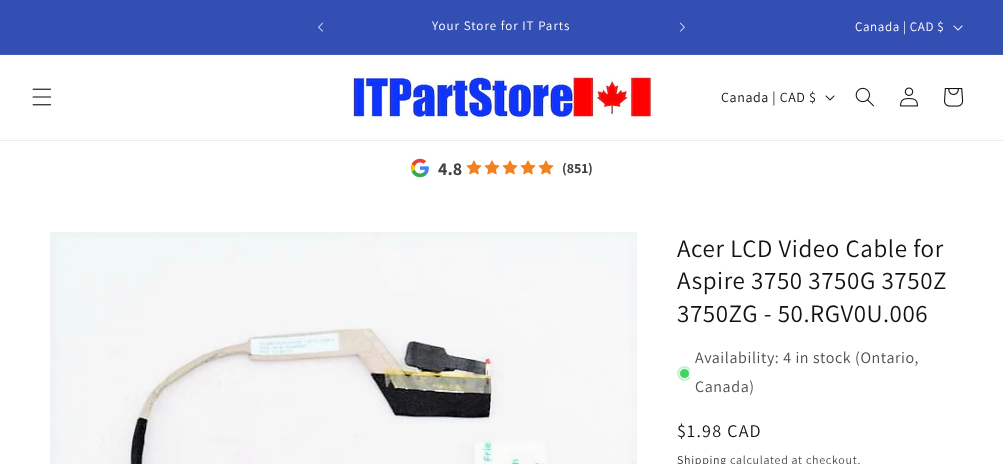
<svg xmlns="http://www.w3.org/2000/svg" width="1003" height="464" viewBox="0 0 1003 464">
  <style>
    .t1 { font: 13px Assistant; letter-spacing: 1px; fill: #fff; }
    .t2 { font: 13px Assistant; letter-spacing: 0.6px; fill: #fff; }
    .t3 { font: 14px Assistant; letter-spacing: 0.6px; fill: #121212; }
    .t4 { font: bold 18px Assistant; fill: #404040; }
    .t5 { font: bold 14px Assistant; fill: #404040; }
    .t6 { font: 25px Assistant; letter-spacing: 0.6px; fill: #121212; }
    .t7 { font: 16px Assistant; letter-spacing: 0.6px; fill: #4d4d4d; }
    .t8 { font: 18px Assistant; letter-spacing: 1.25px; fill: #121212; }
    .t9 { font: 12px Assistant; letter-spacing: 0.7px; fill: #363636; }
    .t10 { font: 12px Assistant; letter-spacing: 0.7px; fill: #4d4d4d; }
  </style>
  <defs>
    <clipPath id="clip1"><rect x="677" y="366" width="13" height="15"/></clipPath>
  </defs>
  <rect width="100%" height="100%" fill="#fff"/>
  <rect x="0" y="0" width="1003" height="54" fill="#334fb4"/>
  <rect x="0" y="54" width="1003" height="1" fill="#435dba"/>
  <image x="318" y="22" width="5" height="10" href="images/1.png"/>
  <text x="432" y="30" class="t1">Your Store for IT Parts</text>
  <image x="680" y="22" width="5" height="10" href="images/2.png"/>
  <text x="855" y="31" class="t2">Canada | CAD $</text>
  <image x="953" y="25" width="10" height="6" href="images/3.png"/>
  <rect x="0" y="140" width="1003" height="1" fill="#ececec"/>
  <image x="32" y="88" width="20" height="18" href="images/4.png"/>
  <image x="352" y="74" width="300" height="46" href="images/5.png"/>
  <text x="721" y="102" class="t3">Canada | CAD $</text>
  <image x="825" y="95" width="10" height="6" href="images/6.png"/>
  <image x="855" y="87" width="19" height="20" href="images/7.png"/>
  <image x="900" y="87" width="18" height="20" href="images/8.png"/>
  <image x="944" y="88" width="20" height="19" href="images/9.png"/>
  <image x="410" y="158" width="19" height="20" href="images/10.png"/>
  <text x="438" y="175" class="t4">4.8</text>
  <image x="466" y="160" width="16" height="15" href="images/11.png"/>
  <image x="484" y="160" width="16" height="15" href="images/11.png"/>
  <image x="502" y="160" width="16" height="15" href="images/11.png"/>
  <image x="520" y="160" width="16" height="15" href="images/11.png"/>
  <image x="538" y="160" width="16" height="15" href="images/11.png"/>
  <text x="562" y="173" class="t5">(851)</text>
  <rect x="50.5" y="232.5" width="586" height="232" fill="none" stroke="#f3f3f3"/>
  <image x="51" y="233" width="585" height="231" href="images/12.png"/>
  <text x="677" y="257" class="t6">Acer LCD Video Cable for</text>
  <text x="677" y="289" class="t6">Aspire 3750 3750G 3750Z</text>
  <text x="677" y="322" class="t6">3750ZG - 50.RGV0U.006</text>
  <text x="695" y="363" class="t7">Availability: 4 in stock (Ontario,</text>
  <g clip-path="url(#clip1)">
    <circle cx="684.5" cy="373.5" r="7.5" fill="#c5f3cf"/>
  </g>
  <circle cx="684.5" cy="373.5" r="5" fill="#3ed660" stroke="#fff"/>
  <text x="695" y="392" class="t7">Canada)</text>
  <text x="677" y="437" class="t8">$1.98 CAD</text>
  <text x="677" y="464" class="t9">Shipping</text>
  <text x="730" y="464" class="t10">calculated at checkout.</text>
</svg>
